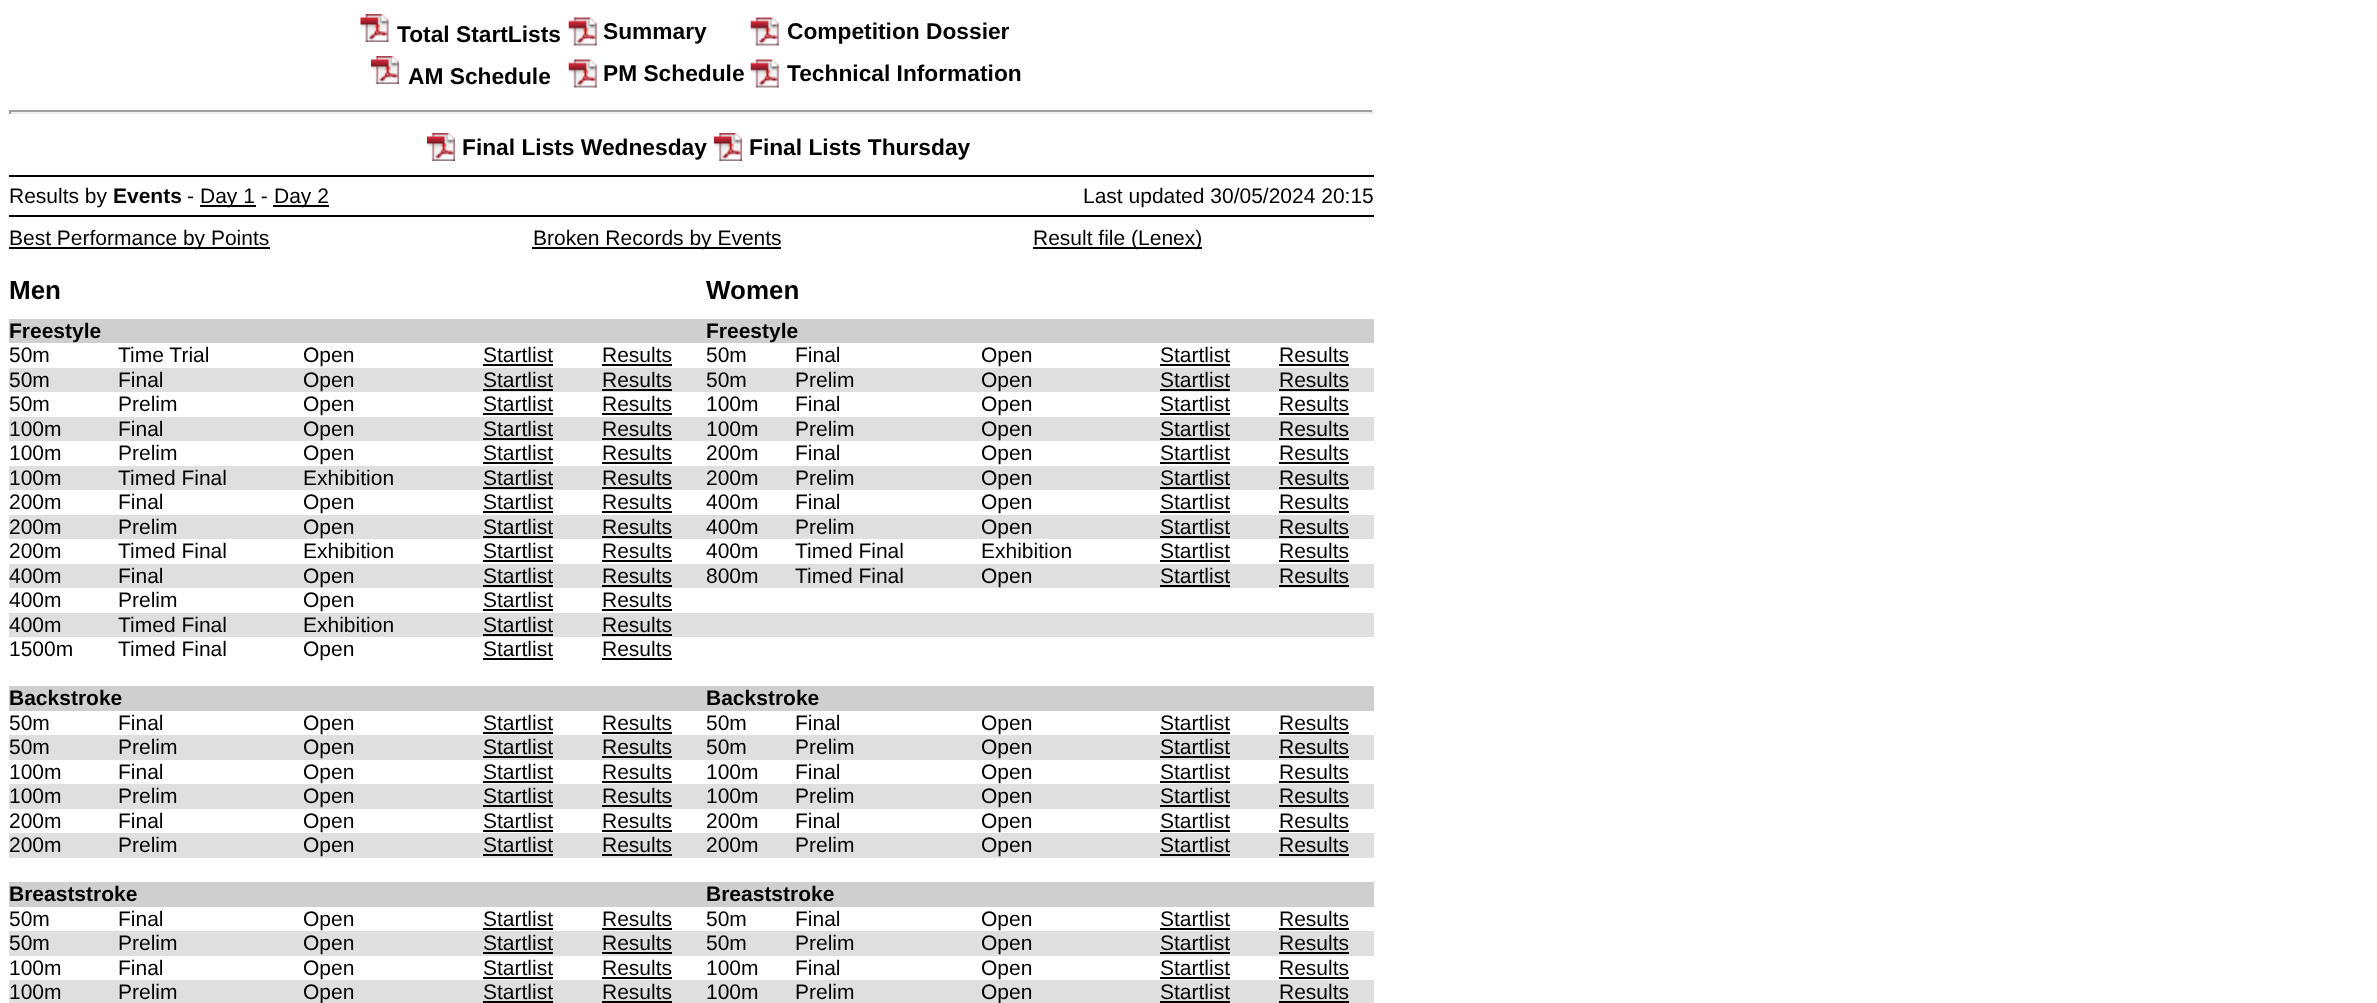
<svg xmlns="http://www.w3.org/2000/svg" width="2377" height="1003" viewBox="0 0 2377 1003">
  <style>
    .t1 { font: bold 22.75px Liberation Sans; fill: #000; }
    .t2 { font: 21px Liberation Sans; fill: #000; }
    .t3 { font: bold 21px Liberation Sans; fill: #000; }
    .t4 { font: bold 26px Liberation Sans; fill: #000; }
  </style>
  <rect width="100%" height="100%" fill="#fff"/>
  <image x="360" y="14" width="29" height="28" href="images/1.png"/>
  <text x="397" y="42" class="t1">Total StartLists</text>
  <image x="568" y="17" width="29" height="29" href="images/2.png"/>
  <text x="603" y="39" class="t1">Summary</text>
  <image x="750" y="17" width="29" height="29" href="images/2.png"/>
  <text x="787" y="39" class="t1">Competition Dossier</text>
  <image x="371" y="56" width="28" height="28" href="images/3.png"/>
  <text x="408" y="84" class="t1">AM Schedule</text>
  <image x="568" y="59" width="29" height="29" href="images/2.png"/>
  <text x="603" y="81" class="t1">PM Schedule</text>
  <image x="750" y="59" width="29" height="29" href="images/2.png"/>
  <text x="787" y="81" class="t1">Technical Information</text>
  <rect x="9" y="110" width="1365" height="2" fill="#9f9f9f"/>
  <rect x="1372" y="110" width="2" height="4" fill="#eee"/>
  <rect x="9" y="112" width="1365" height="2" fill="#eee"/>
  <rect x="9" y="110" width="2" height="4" fill="#9f9f9f"/>
  <image x="427" y="133" width="28" height="28" href="images/3.png"/>
  <text x="462" y="155" class="t1">Final Lists Wednesday</text>
  <image x="714" y="133" width="28" height="28" href="images/3.png"/>
  <text x="749" y="155" class="t1">Final Lists Thursday</text>
  <rect x="9" y="175" width="1365" height="2" fill="#000"/>
  <rect x="9" y="215" width="1365" height="2" fill="#000"/>
  <text x="9" y="203" class="t2">Results by</text>
  <text x="113" y="203" class="t3">Events</text>
  <text x="187" y="203" class="t2">-</text>
  <rect x="200" y="205" width="56" height="2" fill="#000"/>
  <text x="200" y="203" class="t2">Day 1 -</text>
  <rect x="273" y="205" width="56" height="2" fill="#000"/>
  <text x="274" y="203" class="t2">Day 2</text>
  <text x="1083" y="203" class="t2">Last updated 30/05/2024 20:15</text>
  <rect x="9" y="247" width="261" height="2" fill="#000"/>
  <text x="9" y="245" class="t2">Best Performance by Points</text>
  <rect x="532" y="247" width="249" height="2" fill="#000"/>
  <text x="533" y="245" class="t2">Broken Records by Events</text>
  <rect x="1033" y="247" width="169" height="2" fill="#000"/>
  <text x="1033" y="245" class="t2">Result file (Lenex)</text>
  <text x="9" y="299" class="t4">Men</text>
  <text x="706" y="299" class="t4">Women</text>
  <rect x="9" y="319" width="1365" height="24" fill="#cfcfcf"/>
  <text x="9" y="338" class="t3">Freestyle</text>
  <text x="706" y="338" class="t3">Freestyle</text>
  <text x="9" y="362" class="t2">50m</text>
  <text x="118" y="362" class="t2">Time Trial</text>
  <text x="303" y="362" class="t2">Open</text>
  <text x="483" y="362" class="t2">Startlist</text>
  <rect x="483" y="364" width="70" height="2" fill="#000"/>
  <text x="602" y="362" class="t2">Results</text>
  <rect x="602" y="364" width="70" height="2" fill="#000"/>
  <text x="706" y="362" class="t2">50m</text>
  <text x="795" y="362" class="t2">Final</text>
  <text x="981" y="362" class="t2">Open</text>
  <text x="1160" y="362" class="t2">Startlist</text>
  <rect x="1160" y="364" width="70" height="2" fill="#000"/>
  <text x="1279" y="362" class="t2">Results</text>
  <rect x="1279" y="364" width="70" height="2" fill="#000"/>
  <rect x="9" y="368" width="1365" height="24" fill="#dfdfdf"/>
  <text x="9" y="387" class="t2">50m</text>
  <text x="118" y="387" class="t2">Final</text>
  <text x="303" y="387" class="t2">Open</text>
  <text x="483" y="387" class="t2">Startlist</text>
  <rect x="483" y="389" width="70" height="2" fill="#000"/>
  <text x="602" y="387" class="t2">Results</text>
  <rect x="602" y="389" width="70" height="2" fill="#000"/>
  <text x="706" y="387" class="t2">50m</text>
  <text x="795" y="387" class="t2">Prelim</text>
  <text x="981" y="387" class="t2">Open</text>
  <text x="1160" y="387" class="t2">Startlist</text>
  <rect x="1160" y="389" width="70" height="2" fill="#000"/>
  <text x="1279" y="387" class="t2">Results</text>
  <rect x="1279" y="389" width="70" height="2" fill="#000"/>
  <text x="9" y="411" class="t2">50m</text>
  <text x="118" y="411" class="t2">Prelim</text>
  <text x="303" y="411" class="t2">Open</text>
  <text x="483" y="411" class="t2">Startlist</text>
  <rect x="483" y="413" width="70" height="2" fill="#000"/>
  <text x="602" y="411" class="t2">Results</text>
  <rect x="602" y="413" width="70" height="2" fill="#000"/>
  <text x="706" y="411" class="t2">100m</text>
  <text x="795" y="411" class="t2">Final</text>
  <text x="981" y="411" class="t2">Open</text>
  <text x="1160" y="411" class="t2">Startlist</text>
  <rect x="1160" y="413" width="70" height="2" fill="#000"/>
  <text x="1279" y="411" class="t2">Results</text>
  <rect x="1279" y="413" width="70" height="2" fill="#000"/>
  <rect x="9" y="417" width="1365" height="24" fill="#dfdfdf"/>
  <text x="9" y="436" class="t2">100m</text>
  <text x="118" y="436" class="t2">Final</text>
  <text x="303" y="436" class="t2">Open</text>
  <text x="483" y="436" class="t2">Startlist</text>
  <rect x="483" y="438" width="70" height="2" fill="#000"/>
  <text x="602" y="436" class="t2">Results</text>
  <rect x="602" y="438" width="70" height="2" fill="#000"/>
  <text x="706" y="436" class="t2">100m</text>
  <text x="795" y="436" class="t2">Prelim</text>
  <text x="981" y="436" class="t2">Open</text>
  <text x="1160" y="436" class="t2">Startlist</text>
  <rect x="1160" y="438" width="70" height="2" fill="#000"/>
  <text x="1279" y="436" class="t2">Results</text>
  <rect x="1279" y="438" width="70" height="2" fill="#000"/>
  <text x="9" y="460" class="t2">100m</text>
  <text x="118" y="460" class="t2">Prelim</text>
  <text x="303" y="460" class="t2">Open</text>
  <text x="483" y="460" class="t2">Startlist</text>
  <rect x="483" y="462" width="70" height="2" fill="#000"/>
  <text x="602" y="460" class="t2">Results</text>
  <rect x="602" y="462" width="70" height="2" fill="#000"/>
  <text x="706" y="460" class="t2">200m</text>
  <text x="795" y="460" class="t2">Final</text>
  <text x="981" y="460" class="t2">Open</text>
  <text x="1160" y="460" class="t2">Startlist</text>
  <rect x="1160" y="462" width="70" height="2" fill="#000"/>
  <text x="1279" y="460" class="t2">Results</text>
  <rect x="1279" y="462" width="70" height="2" fill="#000"/>
  <rect x="9" y="466" width="1365" height="24" fill="#dfdfdf"/>
  <text x="9" y="485" class="t2">100m</text>
  <text x="118" y="485" class="t2">Timed Final</text>
  <text x="303" y="485" class="t2">Exhibition</text>
  <text x="483" y="485" class="t2">Startlist</text>
  <rect x="483" y="487" width="70" height="2" fill="#000"/>
  <text x="602" y="485" class="t2">Results</text>
  <rect x="602" y="487" width="70" height="2" fill="#000"/>
  <text x="706" y="485" class="t2">200m</text>
  <text x="795" y="485" class="t2">Prelim</text>
  <text x="981" y="485" class="t2">Open</text>
  <text x="1160" y="485" class="t2">Startlist</text>
  <rect x="1160" y="487" width="70" height="2" fill="#000"/>
  <text x="1279" y="485" class="t2">Results</text>
  <rect x="1279" y="487" width="70" height="2" fill="#000"/>
  <text x="9" y="509" class="t2">200m</text>
  <text x="118" y="509" class="t2">Final</text>
  <text x="303" y="509" class="t2">Open</text>
  <text x="483" y="509" class="t2">Startlist</text>
  <rect x="483" y="511" width="70" height="2" fill="#000"/>
  <text x="602" y="509" class="t2">Results</text>
  <rect x="602" y="511" width="70" height="2" fill="#000"/>
  <text x="706" y="509" class="t2">400m</text>
  <text x="795" y="509" class="t2">Final</text>
  <text x="981" y="509" class="t2">Open</text>
  <text x="1160" y="509" class="t2">Startlist</text>
  <rect x="1160" y="511" width="70" height="2" fill="#000"/>
  <text x="1279" y="509" class="t2">Results</text>
  <rect x="1279" y="511" width="70" height="2" fill="#000"/>
  <rect x="9" y="515" width="1365" height="24" fill="#dfdfdf"/>
  <text x="9" y="534" class="t2">200m</text>
  <text x="118" y="534" class="t2">Prelim</text>
  <text x="303" y="534" class="t2">Open</text>
  <text x="483" y="534" class="t2">Startlist</text>
  <rect x="483" y="536" width="70" height="2" fill="#000"/>
  <text x="602" y="534" class="t2">Results</text>
  <rect x="602" y="536" width="70" height="2" fill="#000"/>
  <text x="706" y="534" class="t2">400m</text>
  <text x="795" y="534" class="t2">Prelim</text>
  <text x="981" y="534" class="t2">Open</text>
  <text x="1160" y="534" class="t2">Startlist</text>
  <rect x="1160" y="536" width="70" height="2" fill="#000"/>
  <text x="1279" y="534" class="t2">Results</text>
  <rect x="1279" y="536" width="70" height="2" fill="#000"/>
  <text x="9" y="558" class="t2">200m</text>
  <text x="118" y="558" class="t2">Timed Final</text>
  <text x="303" y="558" class="t2">Exhibition</text>
  <text x="483" y="558" class="t2">Startlist</text>
  <rect x="483" y="560" width="70" height="2" fill="#000"/>
  <text x="602" y="558" class="t2">Results</text>
  <rect x="602" y="560" width="70" height="2" fill="#000"/>
  <text x="706" y="558" class="t2">400m</text>
  <text x="795" y="558" class="t2">Timed Final</text>
  <text x="981" y="558" class="t2">Exhibition</text>
  <text x="1160" y="558" class="t2">Startlist</text>
  <rect x="1160" y="560" width="70" height="2" fill="#000"/>
  <text x="1279" y="558" class="t2">Results</text>
  <rect x="1279" y="560" width="70" height="2" fill="#000"/>
  <rect x="9" y="564" width="1365" height="24" fill="#dfdfdf"/>
  <text x="9" y="583" class="t2">400m</text>
  <text x="118" y="583" class="t2">Final</text>
  <text x="303" y="583" class="t2">Open</text>
  <text x="483" y="583" class="t2">Startlist</text>
  <rect x="483" y="585" width="70" height="2" fill="#000"/>
  <text x="602" y="583" class="t2">Results</text>
  <rect x="602" y="585" width="70" height="2" fill="#000"/>
  <text x="706" y="583" class="t2">800m</text>
  <text x="795" y="583" class="t2">Timed Final</text>
  <text x="981" y="583" class="t2">Open</text>
  <text x="1160" y="583" class="t2">Startlist</text>
  <rect x="1160" y="585" width="70" height="2" fill="#000"/>
  <text x="1279" y="583" class="t2">Results</text>
  <rect x="1279" y="585" width="70" height="2" fill="#000"/>
  <text x="9" y="607" class="t2">400m</text>
  <text x="118" y="607" class="t2">Prelim</text>
  <text x="303" y="607" class="t2">Open</text>
  <text x="483" y="607" class="t2">Startlist</text>
  <rect x="483" y="609" width="70" height="2" fill="#000"/>
  <text x="602" y="607" class="t2">Results</text>
  <rect x="602" y="609" width="70" height="2" fill="#000"/>
  <rect x="9" y="613" width="1365" height="24" fill="#dfdfdf"/>
  <text x="9" y="632" class="t2">400m</text>
  <text x="118" y="632" class="t2">Timed Final</text>
  <text x="303" y="632" class="t2">Exhibition</text>
  <text x="483" y="632" class="t2">Startlist</text>
  <rect x="483" y="634" width="70" height="2" fill="#000"/>
  <text x="602" y="632" class="t2">Results</text>
  <rect x="602" y="634" width="70" height="2" fill="#000"/>
  <text x="9" y="656" class="t2">1500m</text>
  <text x="118" y="656" class="t2">Timed Final</text>
  <text x="303" y="656" class="t2">Open</text>
  <text x="483" y="656" class="t2">Startlist</text>
  <rect x="483" y="658" width="70" height="2" fill="#000"/>
  <text x="602" y="656" class="t2">Results</text>
  <rect x="602" y="658" width="70" height="2" fill="#000"/>
  <rect x="9" y="686" width="1365" height="25" fill="#cfcfcf"/>
  <text x="9" y="705" class="t3">Backstroke</text>
  <text x="706" y="705" class="t3">Backstroke</text>
  <text x="9" y="730" class="t2">50m</text>
  <text x="118" y="730" class="t2">Final</text>
  <text x="303" y="730" class="t2">Open</text>
  <text x="483" y="730" class="t2">Startlist</text>
  <rect x="483" y="732" width="70" height="2" fill="#000"/>
  <text x="602" y="730" class="t2">Results</text>
  <rect x="602" y="732" width="70" height="2" fill="#000"/>
  <text x="706" y="730" class="t2">50m</text>
  <text x="795" y="730" class="t2">Final</text>
  <text x="981" y="730" class="t2">Open</text>
  <text x="1160" y="730" class="t2">Startlist</text>
  <rect x="1160" y="732" width="70" height="2" fill="#000"/>
  <text x="1279" y="730" class="t2">Results</text>
  <rect x="1279" y="732" width="70" height="2" fill="#000"/>
  <rect x="9" y="735" width="1365" height="25" fill="#dfdfdf"/>
  <text x="9" y="754" class="t2">50m</text>
  <text x="118" y="754" class="t2">Prelim</text>
  <text x="303" y="754" class="t2">Open</text>
  <text x="483" y="754" class="t2">Startlist</text>
  <rect x="483" y="756" width="70" height="2" fill="#000"/>
  <text x="602" y="754" class="t2">Results</text>
  <rect x="602" y="756" width="70" height="2" fill="#000"/>
  <text x="706" y="754" class="t2">50m</text>
  <text x="795" y="754" class="t2">Prelim</text>
  <text x="981" y="754" class="t2">Open</text>
  <text x="1160" y="754" class="t2">Startlist</text>
  <rect x="1160" y="756" width="70" height="2" fill="#000"/>
  <text x="1279" y="754" class="t2">Results</text>
  <rect x="1279" y="756" width="70" height="2" fill="#000"/>
  <text x="9" y="779" class="t2">100m</text>
  <text x="118" y="779" class="t2">Final</text>
  <text x="303" y="779" class="t2">Open</text>
  <text x="483" y="779" class="t2">Startlist</text>
  <rect x="483" y="781" width="70" height="2" fill="#000"/>
  <text x="602" y="779" class="t2">Results</text>
  <rect x="602" y="781" width="70" height="2" fill="#000"/>
  <text x="706" y="779" class="t2">100m</text>
  <text x="795" y="779" class="t2">Final</text>
  <text x="981" y="779" class="t2">Open</text>
  <text x="1160" y="779" class="t2">Startlist</text>
  <rect x="1160" y="781" width="70" height="2" fill="#000"/>
  <text x="1279" y="779" class="t2">Results</text>
  <rect x="1279" y="781" width="70" height="2" fill="#000"/>
  <rect x="9" y="784" width="1365" height="25" fill="#dfdfdf"/>
  <text x="9" y="803" class="t2">100m</text>
  <text x="118" y="803" class="t2">Prelim</text>
  <text x="303" y="803" class="t2">Open</text>
  <text x="483" y="803" class="t2">Startlist</text>
  <rect x="483" y="805" width="70" height="2" fill="#000"/>
  <text x="602" y="803" class="t2">Results</text>
  <rect x="602" y="805" width="70" height="2" fill="#000"/>
  <text x="706" y="803" class="t2">100m</text>
  <text x="795" y="803" class="t2">Prelim</text>
  <text x="981" y="803" class="t2">Open</text>
  <text x="1160" y="803" class="t2">Startlist</text>
  <rect x="1160" y="805" width="70" height="2" fill="#000"/>
  <text x="1279" y="803" class="t2">Results</text>
  <rect x="1279" y="805" width="70" height="2" fill="#000"/>
  <text x="9" y="828" class="t2">200m</text>
  <text x="118" y="828" class="t2">Final</text>
  <text x="303" y="828" class="t2">Open</text>
  <text x="483" y="828" class="t2">Startlist</text>
  <rect x="483" y="830" width="70" height="2" fill="#000"/>
  <text x="602" y="828" class="t2">Results</text>
  <rect x="602" y="830" width="70" height="2" fill="#000"/>
  <text x="706" y="828" class="t2">200m</text>
  <text x="795" y="828" class="t2">Final</text>
  <text x="981" y="828" class="t2">Open</text>
  <text x="1160" y="828" class="t2">Startlist</text>
  <rect x="1160" y="830" width="70" height="2" fill="#000"/>
  <text x="1279" y="828" class="t2">Results</text>
  <rect x="1279" y="830" width="70" height="2" fill="#000"/>
  <rect x="9" y="833" width="1365" height="25" fill="#dfdfdf"/>
  <text x="9" y="852" class="t2">200m</text>
  <text x="118" y="852" class="t2">Prelim</text>
  <text x="303" y="852" class="t2">Open</text>
  <text x="483" y="852" class="t2">Startlist</text>
  <rect x="483" y="854" width="70" height="2" fill="#000"/>
  <text x="602" y="852" class="t2">Results</text>
  <rect x="602" y="854" width="70" height="2" fill="#000"/>
  <text x="706" y="852" class="t2">200m</text>
  <text x="795" y="852" class="t2">Prelim</text>
  <text x="981" y="852" class="t2">Open</text>
  <text x="1160" y="852" class="t2">Startlist</text>
  <rect x="1160" y="854" width="70" height="2" fill="#000"/>
  <text x="1279" y="852" class="t2">Results</text>
  <rect x="1279" y="854" width="70" height="2" fill="#000"/>
  <rect x="9" y="882" width="1365" height="25" fill="#cfcfcf"/>
  <text x="9" y="901" class="t3">Breaststroke</text>
  <text x="706" y="901" class="t3">Breaststroke</text>
  <text x="9" y="926" class="t2">50m</text>
  <text x="118" y="926" class="t2">Final</text>
  <text x="303" y="926" class="t2">Open</text>
  <text x="483" y="926" class="t2">Startlist</text>
  <rect x="483" y="928" width="70" height="2" fill="#000"/>
  <text x="602" y="926" class="t2">Results</text>
  <rect x="602" y="928" width="70" height="2" fill="#000"/>
  <text x="706" y="926" class="t2">50m</text>
  <text x="795" y="926" class="t2">Final</text>
  <text x="981" y="926" class="t2">Open</text>
  <text x="1160" y="926" class="t2">Startlist</text>
  <rect x="1160" y="928" width="70" height="2" fill="#000"/>
  <text x="1279" y="926" class="t2">Results</text>
  <rect x="1279" y="928" width="70" height="2" fill="#000"/>
  <rect x="9" y="931" width="1365" height="25" fill="#dfdfdf"/>
  <text x="9" y="950" class="t2">50m</text>
  <text x="118" y="950" class="t2">Prelim</text>
  <text x="303" y="950" class="t2">Open</text>
  <text x="483" y="950" class="t2">Startlist</text>
  <rect x="483" y="952" width="70" height="2" fill="#000"/>
  <text x="602" y="950" class="t2">Results</text>
  <rect x="602" y="952" width="70" height="2" fill="#000"/>
  <text x="706" y="950" class="t2">50m</text>
  <text x="795" y="950" class="t2">Prelim</text>
  <text x="981" y="950" class="t2">Open</text>
  <text x="1160" y="950" class="t2">Startlist</text>
  <rect x="1160" y="952" width="70" height="2" fill="#000"/>
  <text x="1279" y="950" class="t2">Results</text>
  <rect x="1279" y="952" width="70" height="2" fill="#000"/>
  <text x="9" y="975" class="t2">100m</text>
  <text x="118" y="975" class="t2">Final</text>
  <text x="303" y="975" class="t2">Open</text>
  <text x="483" y="975" class="t2">Startlist</text>
  <rect x="483" y="977" width="70" height="2" fill="#000"/>
  <text x="602" y="975" class="t2">Results</text>
  <rect x="602" y="977" width="70" height="2" fill="#000"/>
  <text x="706" y="975" class="t2">100m</text>
  <text x="795" y="975" class="t2">Final</text>
  <text x="981" y="975" class="t2">Open</text>
  <text x="1160" y="975" class="t2">Startlist</text>
  <rect x="1160" y="977" width="70" height="2" fill="#000"/>
  <text x="1279" y="975" class="t2">Results</text>
  <rect x="1279" y="977" width="70" height="2" fill="#000"/>
  <rect x="9" y="980" width="1365" height="23" fill="#dfdfdf"/>
  <text x="9" y="999" class="t2">100m</text>
  <text x="118" y="999" class="t2">Prelim</text>
  <text x="303" y="999" class="t2">Open</text>
  <text x="483" y="999" class="t2">Startlist</text>
  <rect x="483" y="1001" width="70" height="2" fill="#000"/>
  <text x="602" y="999" class="t2">Results</text>
  <rect x="602" y="1001" width="70" height="2" fill="#000"/>
  <text x="706" y="999" class="t2">100m</text>
  <text x="795" y="999" class="t2">Prelim</text>
  <text x="981" y="999" class="t2">Open</text>
  <text x="1160" y="999" class="t2">Startlist</text>
  <rect x="1160" y="1001" width="70" height="2" fill="#000"/>
  <text x="1279" y="999" class="t2">Results</text>
  <rect x="1279" y="1001" width="70" height="2" fill="#000"/>
</svg>
